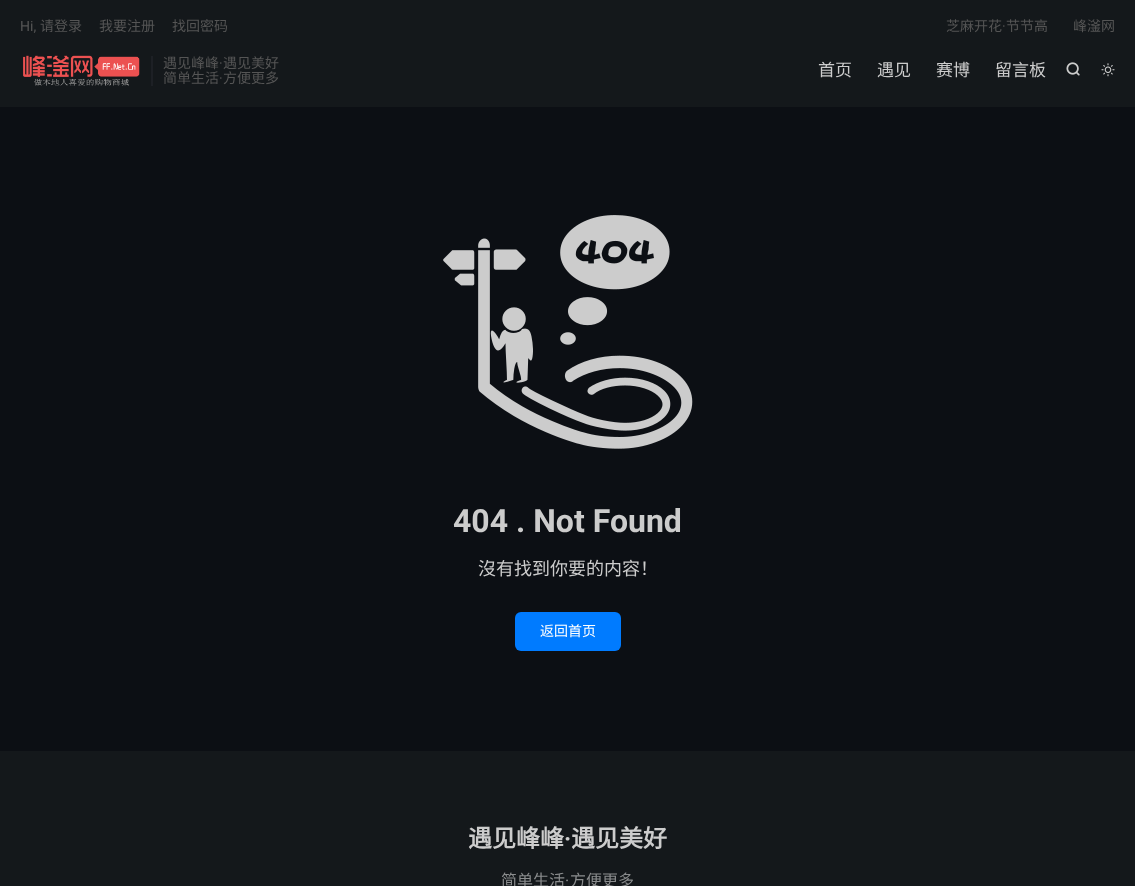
<svg xmlns="http://www.w3.org/2000/svg" width="1135" height="886" viewBox="0 0 1135 886">
  <style>
    .t1 { font: 14px Roboto; fill: #555; }
    .t2 { font: 14px Noto Sans CJK SC; fill: #555; }
    .t3 { font: 17px Noto Sans CJK SC; fill: #ccc; }
    .t4 { font: bold 32px Roboto; fill: #ccc; }
    .t5 { font: 18px Noto Sans CJK SC; fill: #ccc; }
    .t6 { font: 14px Noto Sans CJK SC; fill: #fff; }
    .t7 { font: bold 24px Noto Sans CJK SC; fill: #ccc; }
    .t8 { font: bold 24px Roboto; fill: #ccc; }
    .t9 { font: 16px Noto Sans CJK SC; fill: #8a8c8d; }
    .t10 { font: 16px Roboto; fill: #8a8c8d; }
  </style>
  <rect width="100%" height="100%" fill="#0c0f14"/>
  <rect x="0" y="0" width="1135" height="107" fill="#14181b"/>
  <text x="20" y="31" class="t1">Hi,</text>
  <text x="40" y="31" class="t2">请登录</text>
  <text x="99" y="31" class="t2">我要注册</text>
  <text x="172" y="31" class="t2">找回密码</text>
  <text x="946" y="31" class="t2">芝麻开花</text>
  <text x="1002" y="31" class="t1">·</text>
  <text x="1006" y="31" class="t2">节节高</text>
  <text x="1073" y="31" class="t2">峰滏网</text>
  <image x="23" y="55" width="117" height="31" href="images/1.png"/>
  <rect x="151" y="56" width="2" height="30" fill="#1d2025"/>
  <text x="163" y="68" class="t2">遇见峰峰</text>
  <text x="219" y="68" class="t1">·</text>
  <text x="223" y="68" class="t2">遇见美好</text>
  <text x="163" y="83" class="t2">简单生活</text>
  <text x="219" y="83" class="t1">·</text>
  <text x="223" y="83" class="t2">方便更多</text>
  <text x="818" y="76" class="t3">首页</text>
  <text x="877" y="76" class="t3">遇见</text>
  <text x="936" y="76" class="t3">赛博</text>
  <text x="995" y="76" class="t3">留言板</text>
  <image x="1066" y="62" width="14" height="14" href="images/2.png"/>
  <image x="1101" y="63" width="14" height="14" href="images/3.png"/>
  <image x="443" y="215" width="250" height="234" href="images/4.png"/>
  <text x="453" y="532" class="t4">404 . Not Found</text>
  <text x="478" y="575" class="t5">沒有找到你要的内容！</text>
  <rect x="515" y="612" width="106" height="39" rx="6" fill="#007bff"/>
  <text x="540" y="636" class="t6">返回首页</text>
  <rect x="0" y="751" width="1135" height="135" fill="#14181b"/>
  <text x="468" y="847" class="t7">遇见峰峰</text>
  <text x="564" y="847" class="t8">·</text>
  <text x="571" y="847" class="t7">遇见美好</text>
  <text x="501" y="886" class="t9">简单生活</text>
  <text x="565" y="886" class="t10">·</text>
  <text x="570" y="886" class="t9">方便更多</text>
</svg>
